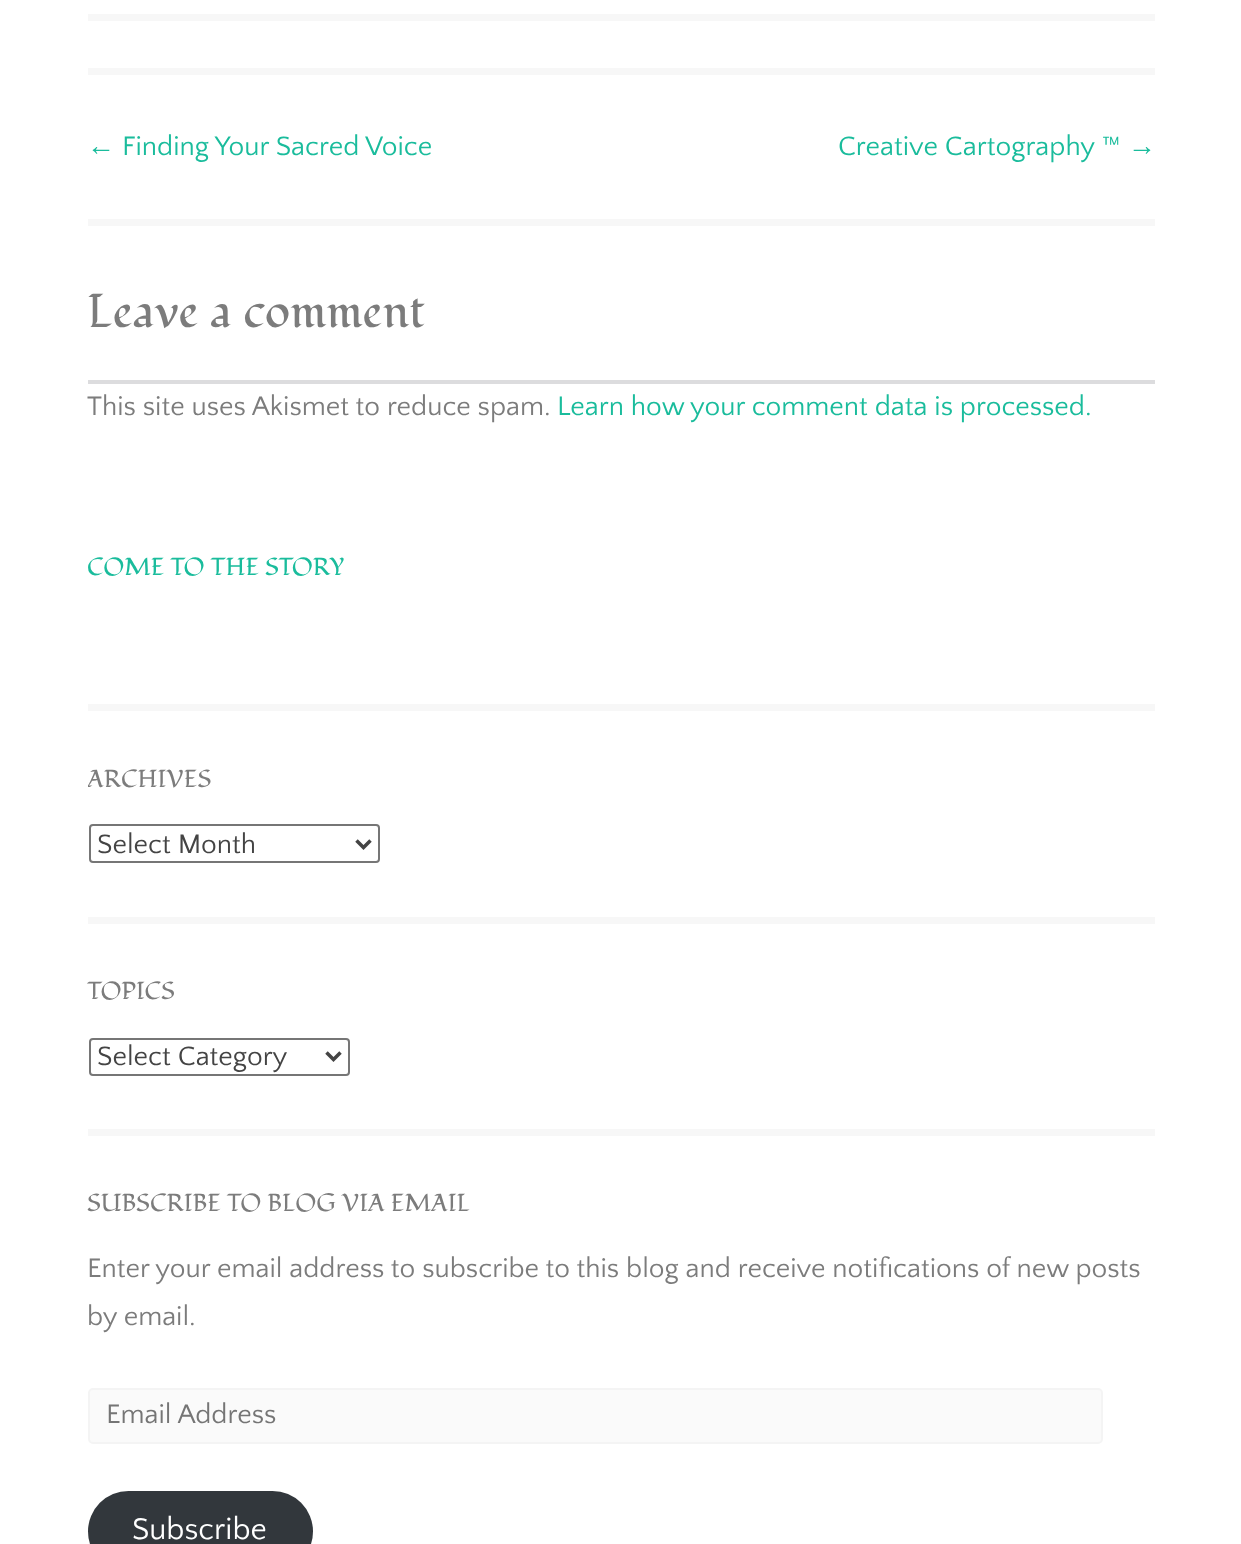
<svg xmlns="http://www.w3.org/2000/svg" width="1241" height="1544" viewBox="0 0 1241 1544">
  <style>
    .t1 { font: 28px Liberation Sans; fill: #1abc9c; }
    .t2 { font: 28px Quattrocento Sans; fill: #1abc9c; }
    .t3 { font: 47.25px Fondamento; fill: #7c7c7c; }
    .t4 { font: 28px Quattrocento Sans; fill: #7c7c7c; }
    .t5 { font: 24.5px Fondamento; fill: #1abc9c; }
    .t6 { font: 24.5px Fondamento; fill: #7c7c7c; }
    .t7 { font: 28px Quattrocento Sans; fill: #444; }
    .t8 { font: 28px Quattrocento Sans; fill: #757575; }
    .t9 { font: 31.5px Quattrocento Sans; fill: #fff; }
  </style>
  <defs>
    <clipPath id="clip1"><rect x="88" y="525" width="1067" height="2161"/></clipPath>
  </defs>
  <rect width="100%" height="100%" fill="#fff"/>
  <rect x="88" y="14" width="1067" height="7" fill="#f7f7f7"/>
  <rect x="88" y="68" width="1067" height="7" fill="#f7f7f7"/>
  <rect x="88" y="219" width="1067" height="7" fill="#f7f7f7"/>
  <text x="87" y="155" class="t1">←</text>
  <text x="122" y="155" class="t2">Finding Your Sacred Voice</text>
  <text x="838" y="155" class="t2">Creative Cartography ™</text>
  <text x="1128" y="155" class="t1">→</text>
  <text x="87" y="327" class="t3">Leave a comment</text>
  <rect x="88" y="380" width="1067" height="4" fill="#dcdcde"/>
  <text x="87" y="415" class="t4">This site uses Akismet to reduce spam.</text>
  <text x="557" y="415" class="t2">Learn how your comment data is processed.</text>
  <rect x="88" y="704" width="1067" height="7" fill="#f7f7f7"/>
  <text x="87" y="575" class="t5">COME TO THE STORY</text>
  <rect x="88" y="917" width="1067" height="7" fill="#f7f7f7"/>
  <g clip-path="url(#clip1)">
    <text x="87" y="787" class="t6">ARCHIVES</text>
  </g>
  <rect x="90" y="825" width="289" height="37" rx="3" fill="none" stroke="#767676" stroke-width="2"/>
  <path d="M356.5 840.5L363.5 847.5L370.5 840.5" fill="none" stroke="#444" stroke-width="3.5"/>
  <text x="97" y="853" class="t7">Select Month</text>
  <rect x="88" y="1129" width="1067" height="7" fill="#f7f7f7"/>
  <text x="87" y="999" class="t6">TOPICS</text>
  <rect x="90" y="1039" width="259" height="36" rx="3" fill="none" stroke="#767676" stroke-width="2"/>
  <path d="M326.5 1052.5L333.5 1059.5L340.5 1052.5" fill="none" stroke="#444" stroke-width="3.5"/>
  <text x="97" y="1065" class="t7">Select Category</text>
  <text x="87" y="1211" class="t6">SUBSCRIBE TO BLOG VIA EMAIL</text>
  <text x="87" y="1277" class="t4">Enter your email address to subscribe to this blog and receive notifications of new posts</text>
  <text x="87" y="1325" class="t4">by email.</text>
  <rect x="89" y="1389" width="1013" height="54" rx="4" fill="#fafafa" stroke="#f4f4f4" stroke-width="2"/>
  <text x="106" y="1423" class="t8">Email Address</text>
  <rect x="88" y="1491" width="225" height="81" rx="40.5" fill="#32373c"/>
  <text x="132" y="1539" class="t9">Subscribe</text>
</svg>
